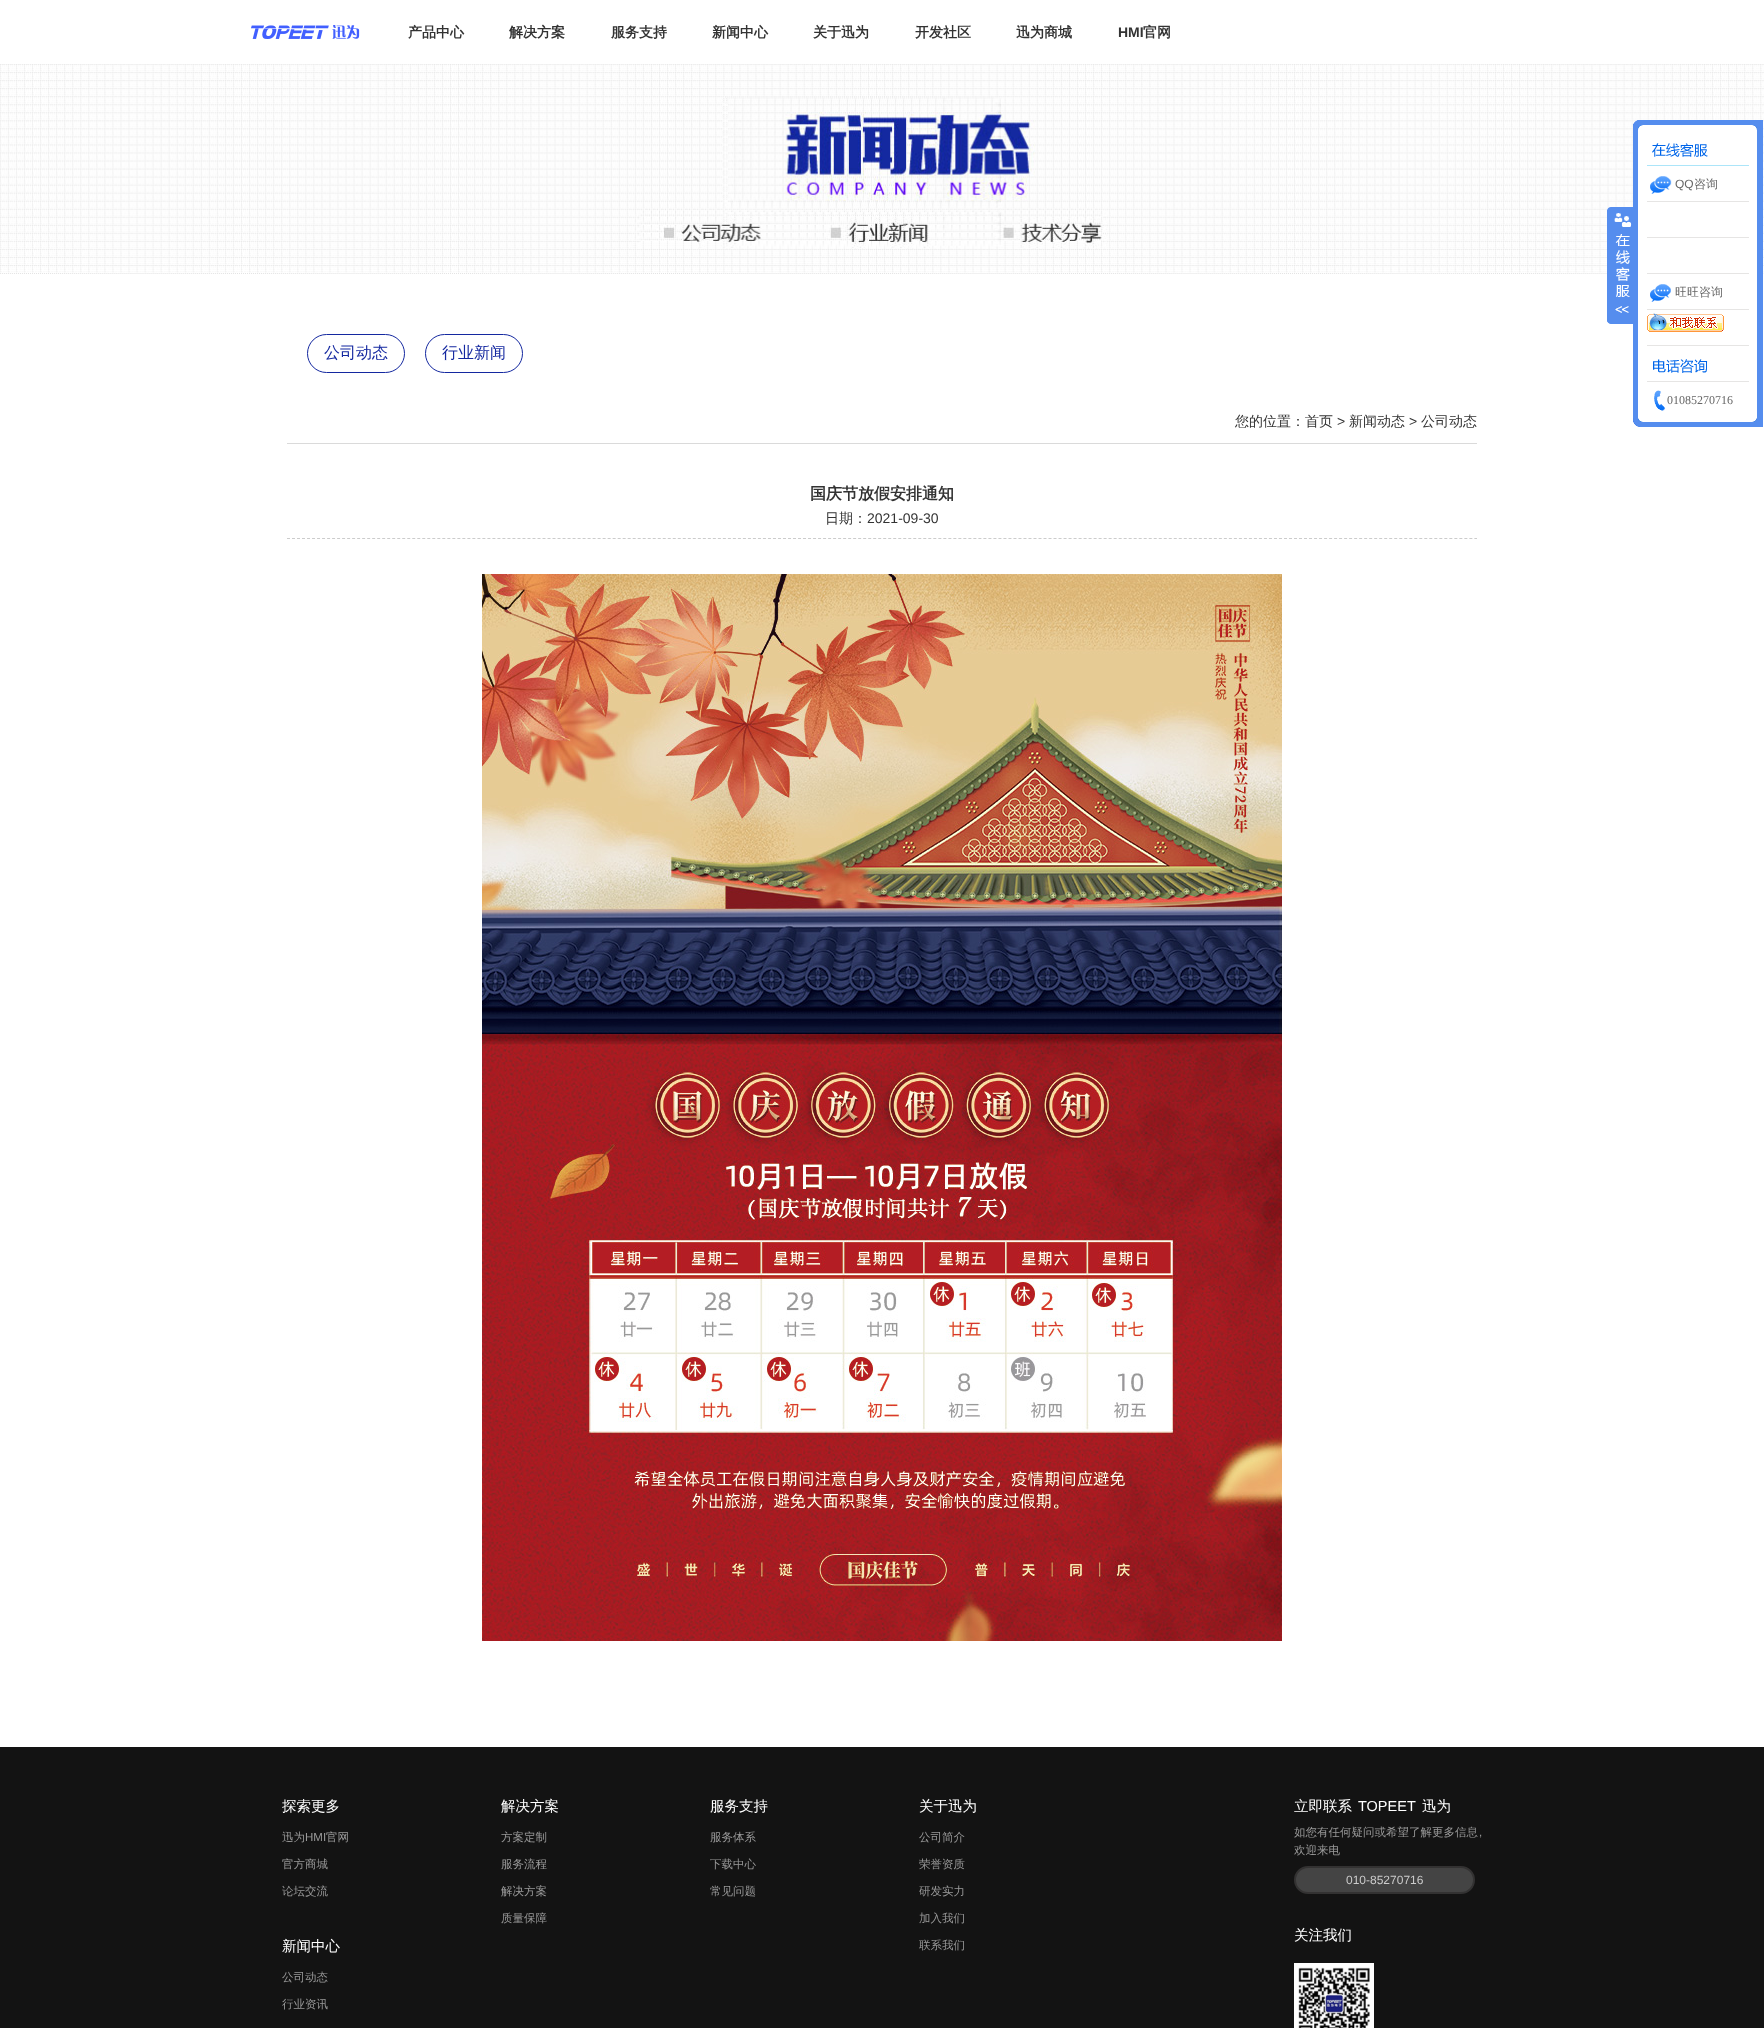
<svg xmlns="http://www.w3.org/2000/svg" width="1764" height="2028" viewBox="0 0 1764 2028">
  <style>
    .t1 { font: bold 14px WenQuanYi Zen Hei; fill: #333; }
    .t2 { font: bold 14px Liberation Sans; fill: #333; }
    .t3 { font: 12px Liberation Sans; fill: #666; }
    .t4 { font: 500 12px WenQuanYi Zen Hei; fill: #666; }
    .t5 { font: 12px Liberation Serif; fill: #666; }
    .t6 { font: 500 16px WenQuanYi Zen Hei; fill: #1428a0; }
    .t7 { font: 500 14px WenQuanYi Zen Hei; fill: #333; }
    .t8 { font: 14px Liberation Sans; fill: #333; }
    .t9 { font: bold 16px WenQuanYi Zen Hei; fill: #333; }
    .t10 { font: 500 14.5px WenQuanYi Zen Hei; fill: #fff; }
    .t11 { font: 500 11.5px WenQuanYi Zen Hei; fill: #999; }
    .t12 { font: 11.5px Liberation Sans; fill: #999; }
    .t13 { font: 14.5px Liberation Sans; fill: #fff; }
    .t14 { font: 12px Liberation Sans; fill: #ccc; }
  </style>
  <rect width="100%" height="100%" fill="#fff"/>
  <image x="251" y="25" width="109" height="14" href="images/1.png"/>
  <text x="408" y="37" class="t1">产品中心</text>
  <text x="509" y="37" class="t1">解决方案</text>
  <text x="611" y="37" class="t1">服务支持</text>
  <text x="712" y="37" class="t1">新闻中心</text>
  <text x="813" y="37" class="t1">关于迅为</text>
  <text x="915" y="37" class="t1">开发社区</text>
  <text x="1016" y="37" class="t1">迅为商城</text>
  <text x="1118" y="37" class="t2">HMI</text>
  <text x="1143" y="37" class="t1">官网</text>
  <image x="0" y="64" width="1764" height="210" href="images/2.png"/>
  <image x="1607" y="207" width="26" height="117" href="images/3.png"/>
  <image x="1633" y="418" width="130" height="9" href="images/4.png"/>
  <image x="1633" y="120" width="130" height="10" href="images/5.png"/>
  <image x="1633" y="130" width="130" height="288" href="images/6.png"/>
  <rect x="1647" y="165" width="102" height="1" fill="#ace5f9"/>
  <image x="1652" y="143" width="56" height="14" href="images/7.png"/>
  <rect x="1647" y="201" width="102" height="1" fill="#e6e5e4"/>
  <image x="1650" y="176" width="22" height="18" href="images/8.png"/>
  <text x="1675" y="188" class="t3">QQ</text>
  <text x="1694" y="188" class="t4">咨询</text>
  <rect x="1647" y="237" width="102" height="1" fill="#e6e5e4"/>
  <rect x="1647" y="273" width="102" height="1" fill="#e6e5e4"/>
  <rect x="1647" y="309" width="102" height="1" fill="#e6e5e4"/>
  <image x="1650" y="284" width="21" height="18" href="images/9.png"/>
  <text x="1675" y="296" class="t4">旺旺咨询</text>
  <rect x="1647" y="345" width="102" height="1" fill="#e6e5e4"/>
  <image x="1647" y="313" width="77" height="19" href="images/10.png"/>
  <rect x="1647" y="381" width="102" height="1" fill="#e6e5e4"/>
  <image x="1653" y="359" width="55" height="14" href="images/11.png"/>
  <image x="1654" y="390" width="12" height="21" href="images/12.png"/>
  <text x="1667" y="404" class="t5">01085270716</text>
  <rect x="307.5" y="334.5" width="97" height="38" rx="19" fill="none" stroke="#1428a0"/>
  <text x="324" y="358" class="t6">公司动态</text>
  <rect x="425.5" y="334.5" width="97" height="38" rx="19" fill="none" stroke="#1428a0"/>
  <text x="442" y="358" class="t6">行业新闻</text>
  <rect x="287" y="443" width="1190" height="1" fill="#dadada"/>
  <text x="1235" y="426" class="t7">您的位置：首页</text>
  <text x="1337" y="426" class="t8">&gt;</text>
  <text x="1349" y="426" class="t7">新闻动态</text>
  <text x="1409" y="426" class="t8">&gt;</text>
  <text x="1421" y="426" class="t7">公司动态</text>
  <text x="810" y="499" class="t9">国庆节放假安排通知</text>
  <path d="M287 538.5H1477" fill="none" stroke="#ccc" stroke-dasharray="3 2.01"/>
  <text x="825" y="523" class="t7">日期：</text>
  <text x="867" y="523" class="t8">2021-09-30</text>
  <image x="482" y="574" width="800" height="1067" href="images/13.png"/>
  <rect x="0" y="1747" width="1764" height="281" fill="#131313"/>
  <text x="282" y="1811" class="t10">探索更多</text>
  <text x="282" y="1841" class="t11">迅为</text>
  <text x="305" y="1841" class="t12">HMI</text>
  <text x="326" y="1841" class="t11">官网</text>
  <text x="282" y="1868" class="t11">官方商城</text>
  <text x="282" y="1895" class="t11">论坛交流</text>
  <text x="282" y="1951" class="t10">新闻中心</text>
  <text x="282" y="1981" class="t11">公司动态</text>
  <text x="282" y="2008" class="t11">行业资讯</text>
  <text x="501" y="1811" class="t10">解决方案</text>
  <text x="501" y="1841" class="t11">方案定制</text>
  <text x="501" y="1868" class="t11">服务流程</text>
  <text x="501" y="1895" class="t11">解决方案</text>
  <text x="501" y="1922" class="t11">质量保障</text>
  <text x="710" y="1811" class="t10">服务支持</text>
  <text x="710" y="1841" class="t11">服务体系</text>
  <text x="710" y="1868" class="t11">下载中心</text>
  <text x="710" y="1895" class="t11">常见问题</text>
  <text x="919" y="1811" class="t10">关于迅为</text>
  <text x="919" y="1841" class="t11">公司简介</text>
  <text x="919" y="1868" class="t11">荣誉资质</text>
  <text x="919" y="1895" class="t11">研发实力</text>
  <text x="919" y="1922" class="t11">加入我们</text>
  <text x="919" y="1949" class="t11">联系我们</text>
  <text x="1294" y="1811" class="t10">立即联系</text>
  <text x="1358" y="1811" class="t13">TOPEET</text>
  <text x="1422" y="1811" class="t10">迅为</text>
  <text x="1294" y="1836" class="t11">如您有任何疑问或希望了解更多信息</text>
  <text x="1479" y="1836" class="t12">,</text>
  <text x="1294" y="1854" class="t11">欢迎来电</text>
  <rect x="1295" y="1867" width="179" height="26" rx="13" fill="#444" stroke="#333232" stroke-width="2"/>
  <text x="1346" y="1884" class="t14">010-85270716</text>
  <text x="1294" y="1940" class="t10">关注我们</text>
  <image x="1294" y="1963" width="80" height="65" href="images/14.png"/>
</svg>
